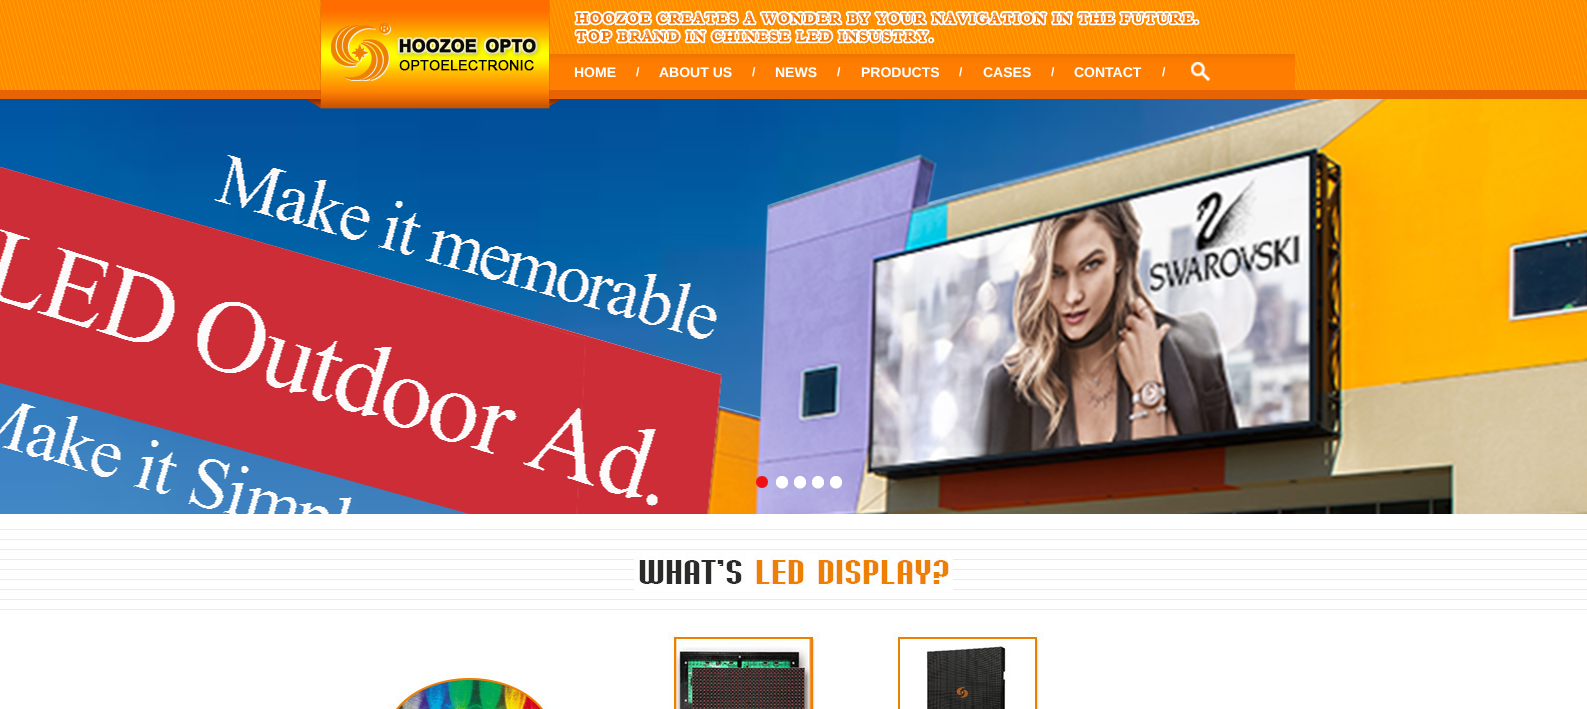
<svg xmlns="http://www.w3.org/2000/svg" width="1587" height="709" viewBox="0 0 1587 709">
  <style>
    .t1 { font: bold 14px Liberation Sans; fill: #fff; }
    .t2 { font: bold 12px Liberation Sans; fill: #fff; }
  </style>
  <rect width="100%" height="100%" fill="#fff"/>
  <image x="0" y="0" width="1587" height="99" href="images/1.png"/>
  <image x="549" y="54" width="746" height="36" href="images/4.png"/>
  <image x="0" y="99" width="1587" height="415" href="images/6.png"/>
  <image x="305" y="0" width="257" height="109" href="images/2.png"/>
  <image x="574" y="10" width="626" height="34" href="images/3.png"/>
  <text x="574" y="77" class="t1">HOME</text>
  <text x="636" y="76" class="t2">/</text>
  <text x="659" y="77" class="t1">ABOUT US</text>
  <text x="752" y="76" class="t2">/</text>
  <text x="775" y="77" class="t1">NEWS</text>
  <text x="837" y="76" class="t2">/</text>
  <text x="861" y="77" class="t1">PRODUCTS</text>
  <text x="959" y="76" class="t2">/</text>
  <text x="983" y="77" class="t1">CASES</text>
  <text x="1051" y="76" class="t2">/</text>
  <text x="1074" y="77" class="t1">CONTACT</text>
  <text x="1162" y="76" class="t2">/</text>
  <image x="1191" y="62" width="19" height="19" href="images/5.png"/>
  <image x="756" y="476" width="12" height="12" href="images/7.png"/>
  <image x="776" y="476" width="12" height="13" href="images/8.png"/>
  <image x="794" y="476" width="12" height="13" href="images/9.png"/>
  <image x="812" y="476" width="12" height="13" href="images/10.png"/>
  <image x="830" y="476" width="12" height="13" href="images/11.png"/>
  <image x="0" y="529" width="1587" height="81" href="images/12.png"/>
  <image x="634" y="554" width="319" height="36" href="images/13.png"/>
  <image x="388" y="632" width="656" height="77" href="images/14.png"/>
</svg>
